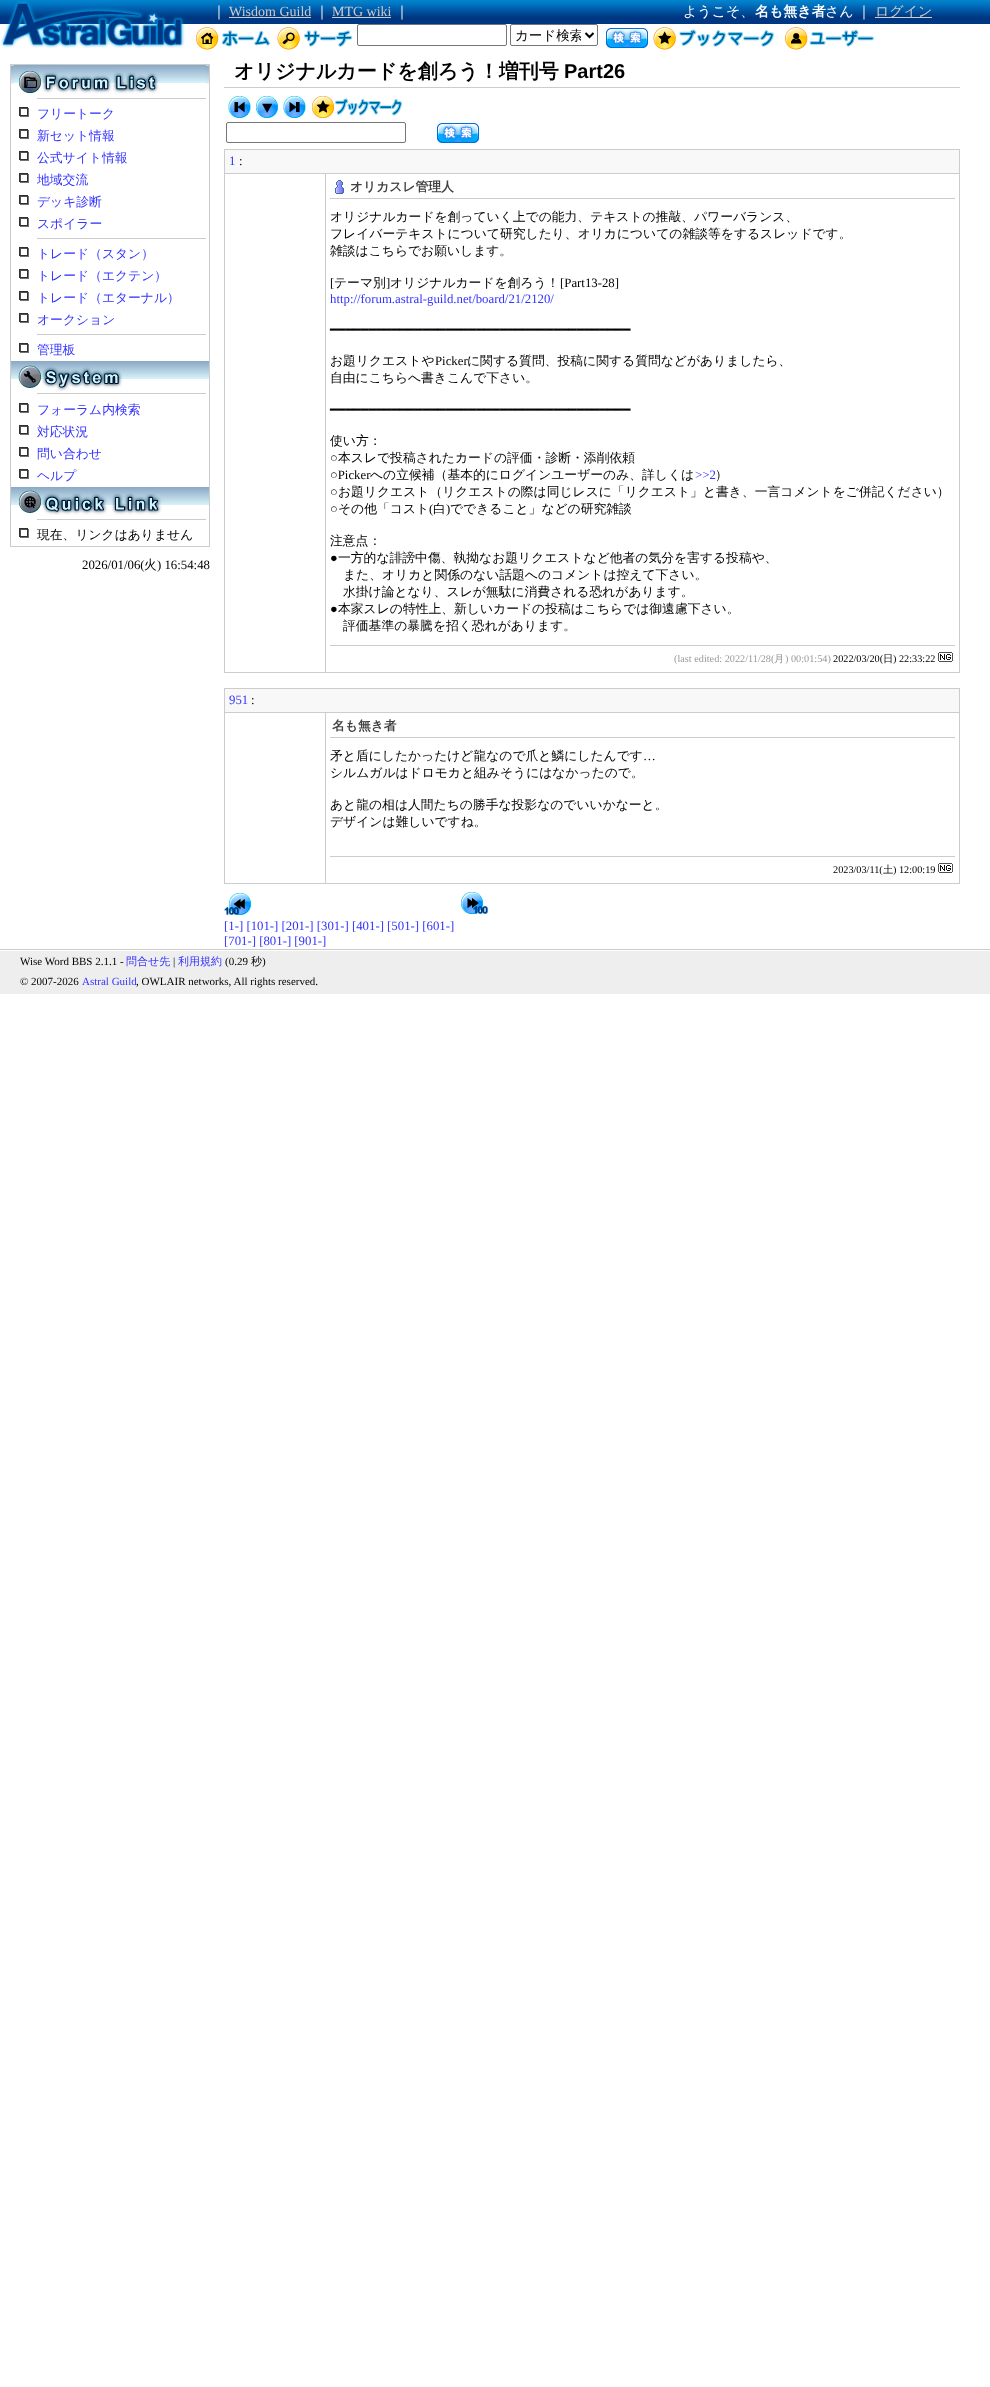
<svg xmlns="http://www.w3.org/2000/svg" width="990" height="2387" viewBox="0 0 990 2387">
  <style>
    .t1 { font: 500 14px WenQuanYi Zen Hei; fill: #fff; }
    .t2 { font: 14px Liberation Serif; fill: #ccc; }
    .t3 { font: bold 14px WenQuanYi Zen Hei; fill: #fff; }
    .t4 { font: 500 14px WenQuanYi Zen Hei; fill: #ccc; }
    .t5 { font: 500 13.5px WenQuanYi Zen Hei; fill: #000; }
    .t6 { font: 500 12.8px WenQuanYi Zen Hei; fill: #33f; }
    .t7 { font: 500 12.8px WenQuanYi Zen Hei; fill: #000; }
    .t8 { font: 12.8px Liberation Serif; fill: #000; }
    .t9 { font: bold 20px WenQuanYi Zen Hei; fill: #000; }
    .t10 { font: bold 20px Liberation Sans; fill: #000; }
    .t11 { font: 12.8px Liberation Serif; fill: #33f; }
    .t12 { font: bold 12.8px WenQuanYi Zen Hei; fill: #404040; }
    .t13 { font: 12.8px DejaVu Sans; fill: #000; }
    .t14 { font: 10.25px Liberation Serif; fill: #999; }
    .t15 { font: 500 10.25px WenQuanYi Zen Hei; fill: #999; }
    .t16 { font: 10.25px Liberation Serif; fill: #000; }
    .t17 { font: 500 10.25px WenQuanYi Zen Hei; fill: #000; }
    .t18 { font: 11px Liberation Serif; fill: #000; }
    .t19 { font: 500 11px WenQuanYi Zen Hei; fill: #33f; }
    .t20 { font: 500 11px WenQuanYi Zen Hei; fill: #000; }
    .t21 { font: 11px Liberation Serif; fill: #33f; }
  </style>
  <defs>
    <clipPath id="clip1"><rect x="515" y="27" width="66" height="17"/></clipPath>
  </defs>
  <rect width="100%" height="100%" fill="#fff"/>
  <image x="0" y="0" width="192" height="48" href="images/1.png"/>
  <image x="192" y="0" width="458" height="24" href="images/2.png"/>
  <text x="212" y="16" class="t1">｜</text>
  <text x="229" y="16" class="t2">Wisdom Guild</text>
  <rect x="229" y="17" width="82" height="1" fill="#ccc"/>
  <text x="315" y="16" class="t1">｜</text>
  <text x="332" y="16" class="t2">MTG wiki</text>
  <rect x="332" y="17" width="59" height="1" fill="#ccc"/>
  <text x="395" y="16" class="t1">｜</text>
  <image x="650" y="0" width="340" height="24" href="images/3.png"/>
  <text x="683" y="16" class="t1">ようこそ、</text>
  <text x="755" y="16" class="t3">名も無き者</text>
  <text x="825" y="16" class="t1">さん</text>
  <text x="857" y="16" class="t1">｜</text>
  <rect x="875" y="17" width="57" height="1" fill="#ccc"/>
  <text x="875" y="16" class="t4">ログイン</text>
  <image x="196" y="27" width="74" height="23" href="images/4.png"/>
  <image x="277" y="27" width="76" height="23" href="images/5.png"/>
  <rect x="357.5" y="24.5" width="149" height="21" rx="1.5" fill="none" stroke="#767676"/>
  <rect x="510.5" y="24.5" width="87" height="21" rx="1.5" fill="none" stroke="#767676"/>
  <path d="M585.5 33L589.5 37L593.5 33" fill="none" stroke="#000" stroke-width="2"/>
  <g clip-path="url(#clip1)">
    <text x="515" y="40" class="t5">カード検索</text>
  </g>
  <image x="606" y="28" width="42" height="20" href="images/6.png"/>
  <image x="653" y="27" width="121" height="23" href="images/7.png"/>
  <image x="785" y="27" width="89" height="23" href="images/8.png"/>
  <rect x="10" y="64" width="200" height="1" fill="#ccc"/>
  <rect x="209" y="64" width="1" height="483" fill="#ccc"/>
  <rect x="10" y="546" width="200" height="1" fill="#ccc"/>
  <rect x="10" y="64" width="1" height="483" fill="#ccc"/>
  <image x="11" y="65" width="198" height="30" href="images/9.png"/>
  <image x="14" y="65" width="192" height="29" href="images/10.png"/>
  <rect x="37" y="98" width="169" height="1" fill="#ccc"/>
  <image x="19" y="107" width="10" height="10" href="images/11.png"/>
  <text x="37" y="118" class="t6">フリートーク</text>
  <image x="19" y="129" width="10" height="10" href="images/11.png"/>
  <text x="37" y="140" class="t6">新セット情報</text>
  <image x="19" y="151" width="10" height="10" href="images/11.png"/>
  <text x="37" y="162" class="t6">公式サイト情報</text>
  <image x="19" y="173" width="10" height="10" href="images/11.png"/>
  <text x="37" y="184" class="t6">地域交流</text>
  <image x="19" y="195" width="10" height="10" href="images/11.png"/>
  <text x="37" y="206" class="t6">デッキ診断</text>
  <image x="19" y="217" width="10" height="10" href="images/11.png"/>
  <text x="37" y="228" class="t6">スポイラー</text>
  <rect x="37" y="238" width="169" height="1" fill="#ccc"/>
  <image x="19" y="247" width="10" height="10" href="images/11.png"/>
  <text x="37" y="258" class="t6">トレード（スタン）</text>
  <image x="19" y="269" width="10" height="10" href="images/11.png"/>
  <text x="37" y="280" class="t6">トレード（エクテン）</text>
  <image x="19" y="291" width="10" height="10" href="images/11.png"/>
  <text x="37" y="302" class="t6">トレード（エターナル）</text>
  <image x="19" y="313" width="10" height="10" href="images/11.png"/>
  <text x="37" y="324" class="t6">オークション</text>
  <rect x="37" y="334" width="169" height="1" fill="#ccc"/>
  <image x="19" y="343" width="10" height="10" href="images/11.png"/>
  <text x="37" y="354" class="t6">管理板</text>
  <image x="11" y="361" width="198" height="30" href="images/12.png"/>
  <image x="18" y="365" width="105" height="26" href="images/13.png"/>
  <rect x="37" y="393" width="169" height="1" fill="#ccc"/>
  <image x="19" y="403" width="10" height="10" href="images/11.png"/>
  <text x="37" y="414" class="t6">フォーラム内検索</text>
  <image x="19" y="425" width="10" height="10" href="images/11.png"/>
  <text x="37" y="436" class="t6">対応状況</text>
  <image x="19" y="447" width="10" height="10" href="images/11.png"/>
  <text x="37" y="458" class="t6">問い合わせ</text>
  <image x="19" y="469" width="10" height="10" href="images/11.png"/>
  <text x="37" y="480" class="t6">ヘルプ</text>
  <image x="11" y="487" width="198" height="30" href="images/12.png"/>
  <image x="19" y="490" width="143" height="25" href="images/14.png"/>
  <rect x="37" y="519" width="169" height="1" fill="#ccc"/>
  <image x="19" y="528" width="10" height="10" href="images/11.png"/>
  <text x="37" y="539" class="t7">現在、リンクはありません</text>
  <text x="82" y="569" class="t8">2026/01/06(</text>
  <text x="144" y="569" class="t7">火</text>
  <text x="157" y="569" class="t8">) 16:54:48</text>
  <rect x="224" y="87" width="736" height="1" fill="#ccc"/>
  <text x="234" y="78" class="t9">オリジナルカードを創ろう！増刊号</text>
  <text x="564" y="78" class="t10">Part26</text>
  <image x="228" y="96" width="23" height="22" href="images/15.png"/>
  <image x="256" y="96" width="22" height="22" href="images/16.png"/>
  <image x="283" y="96" width="23" height="22" href="images/17.png"/>
  <image x="312" y="96" width="90" height="22" href="images/18.png"/>
  <rect x="226.5" y="122.5" width="179" height="20" rx="1.5" fill="none" stroke="#767676"/>
  <image x="437" y="123" width="42" height="20" href="images/6.png"/>
  <rect x="225" y="150" width="734" height="23" fill="#f8f8f8"/>
  <rect x="224" y="149" width="736" height="1" fill="#ccc"/>
  <rect x="325" y="173" width="635" height="1" fill="#ccc"/>
  <rect x="959" y="173" width="1" height="500" fill="#ccc"/>
  <rect x="959" y="149" width="1" height="25" fill="#ccc"/>
  <rect x="325" y="672" width="635" height="1" fill="#ccc"/>
  <rect x="325" y="173" width="1" height="500" fill="#ccc"/>
  <rect x="224" y="173" width="102" height="1" fill="#ccc"/>
  <rect x="224" y="672" width="102" height="1" fill="#ccc"/>
  <rect x="224" y="173" width="1" height="500" fill="#ccc"/>
  <rect x="224" y="149" width="1" height="25" fill="#ccc"/>
  <text x="229" y="165" class="t11">1</text>
  <text x="239" y="165" class="t8">:</text>
  <rect x="330" y="198" width="625" height="1" fill="#ccc"/>
  <image x="335" y="180" width="9" height="14" href="images/19.png"/>
  <text x="350" y="191" class="t12">オリカスレ管理人</text>
  <text x="330" y="221" class="t7">オリジナルカードを創っていく上での能力、テキストの推敲、パワーバランス、</text>
  <text x="330" y="238" class="t7">フレイバーテキストについて研究したり、オリカについての雑談等をするスレッドです。</text>
  <text x="330" y="255" class="t7">雑談はこちらでお願いします。</text>
  <text x="330" y="287" class="t8">[</text>
  <text x="334" y="287" class="t7">テーマ別</text>
  <text x="386" y="287" class="t8">]</text>
  <text x="390" y="287" class="t7">オリジナルカードを創ろう！</text>
  <text x="560" y="287" class="t8">[Part13-28]</text>
  <text x="330" y="303" class="t11">http://forum.astral-guild.net/board/21/2120/</text>
  <text x="330" y="334" class="t13">━━━━━━━━━━━━━━━━━━━━━━━━━━━━━━━━━━━━━━━</text>
  <text x="330" y="365" class="t7">お題リクエストや</text>
  <text x="435" y="365" class="t8">Picker</text>
  <text x="467" y="365" class="t7">に関する質問、投稿に関する質問などがありましたら、</text>
  <text x="330" y="382" class="t7">自由にこちらへ書きこんで下さい。</text>
  <text x="330" y="414" class="t13">━━━━━━━━━━━━━━━━━━━━━━━━━━━━━━━━━━━━━━━</text>
  <text x="330" y="445" class="t7">使い方：</text>
  <text x="330" y="462" class="t8">○</text>
  <text x="338" y="462" class="t7">本スレで投稿されたカードの評価・診断・添削依頼</text>
  <text x="330" y="479" class="t8">○Picker</text>
  <text x="370" y="479" class="t7">への立候補（基本的にログインユーザーのみ、詳しくは</text>
  <text x="695" y="479" class="t11">&gt;&gt;2</text>
  <text x="715" y="479" class="t7">）</text>
  <text x="330" y="496" class="t8">○</text>
  <text x="338" y="496" class="t7">お題リクエスト（リクエストの際は同じレスに「リクエスト」と書き、一言コメントをご併記ください）</text>
  <text x="330" y="513" class="t8">○</text>
  <text x="338" y="513" class="t7">その他「コスト</text>
  <text x="429" y="513" class="t8">(</text>
  <text x="433" y="513" class="t7">白</text>
  <text x="446" y="513" class="t8">)</text>
  <text x="450" y="513" class="t7">でできること」などの研究雑談</text>
  <text x="330" y="545" class="t7">注意点：</text>
  <text x="330" y="562" class="t8">●</text>
  <text x="338" y="562" class="t7">一方的な誹謗中傷、執拗なお題リクエストなど他者の気分を害する投稿や、</text>
  <text x="343" y="579" class="t7">また、オリカと関係のない話題へのコメントは控えて下さい。</text>
  <text x="343" y="596" class="t7">水掛け論となり、スレが無駄に消費される恐れがあります。</text>
  <text x="330" y="613" class="t8">●</text>
  <text x="338" y="613" class="t7">本家スレの特性上、新しいカードの投稿はこちらでは御遠慮下さい。</text>
  <text x="343" y="630" class="t7">評価基準の暴騰を招く恐れがあります。</text>
  <rect x="330" y="645" width="625" height="1" fill="#ccc"/>
  <text x="674" y="662" class="t14">(last edited: 2022/11/28(</text>
  <text x="774" y="662" class="t15">月</text>
  <text x="785" y="662" class="t14">) 00:01:54)</text>
  <text x="833" y="662" class="t16">2022/03/20(</text>
  <text x="883" y="662" class="t17">日</text>
  <text x="893" y="662" class="t16">) 22:33:22</text>
  <image x="938" y="652" width="15" height="10" href="images/20.png"/>
  <rect x="225" y="689" width="734" height="23" fill="#f8f8f8"/>
  <rect x="224" y="688" width="736" height="1" fill="#ccc"/>
  <rect x="325" y="712" width="635" height="1" fill="#ccc"/>
  <rect x="959" y="712" width="1" height="172" fill="#ccc"/>
  <rect x="959" y="688" width="1" height="25" fill="#ccc"/>
  <rect x="325" y="883" width="635" height="1" fill="#ccc"/>
  <rect x="325" y="712" width="1" height="172" fill="#ccc"/>
  <rect x="224" y="712" width="102" height="1" fill="#ccc"/>
  <rect x="224" y="883" width="102" height="1" fill="#ccc"/>
  <rect x="224" y="712" width="1" height="172" fill="#ccc"/>
  <rect x="224" y="688" width="1" height="25" fill="#ccc"/>
  <text x="229" y="704" class="t11">951</text>
  <text x="251" y="704" class="t8">:</text>
  <rect x="330" y="737" width="625" height="1" fill="#ccc"/>
  <text x="332" y="730" class="t12">名も無き者</text>
  <text x="330" y="760" class="t7">矛と盾にしたかったけど龍なので爪と鱗にしたんです</text>
  <text x="643" y="760" class="t8">…</text>
  <text x="330" y="777" class="t7">シルムガルはドロモカと組みそうにはなかったので。</text>
  <text x="330" y="809" class="t7">あと龍の相は人間たちの勝手な投影なのでいいかなーと。</text>
  <text x="330" y="826" class="t7">デザインは難しいですね。</text>
  <rect x="330" y="856" width="625" height="1" fill="#ccc"/>
  <text x="833" y="873" class="t16">2023/03/11(</text>
  <text x="883" y="873" class="t17">土</text>
  <text x="893" y="873" class="t16">) 12:00:19</text>
  <image x="938" y="863" width="15" height="10" href="images/20.png"/>
  <image x="224" y="893" width="27" height="22" href="images/21.png"/>
  <image x="461" y="892" width="27" height="22" href="images/22.png"/>
  <text x="224" y="930" class="t11">[1-] [101-] [201-] [301-] [401-] [501-] [601-]</text>
  <text x="224" y="945" class="t11">[701-] [801-] [901-]</text>
  <rect x="0" y="951" width="990" height="43" fill="#eee"/>
  <rect x="0" y="949" width="990" height="1" fill="#ccc"/>
  <text x="20" y="965" class="t18">Wise Word BBS 2.1.1 -</text>
  <text x="126" y="965" class="t19">問合せ先</text>
  <text x="173" y="965" class="t18">|</text>
  <text x="178" y="965" class="t19">利用規約</text>
  <text x="225" y="965" class="t18">(0.29</text>
  <text x="251" y="965" class="t20">秒</text>
  <text x="262" y="965" class="t18">)</text>
  <text x="20" y="985" class="t18">© 2007-2026</text>
  <text x="82" y="985" class="t21">Astral Guild</text>
  <text x="136" y="985" class="t18">, OWLAIR networks, All rights reserved.</text>
</svg>
